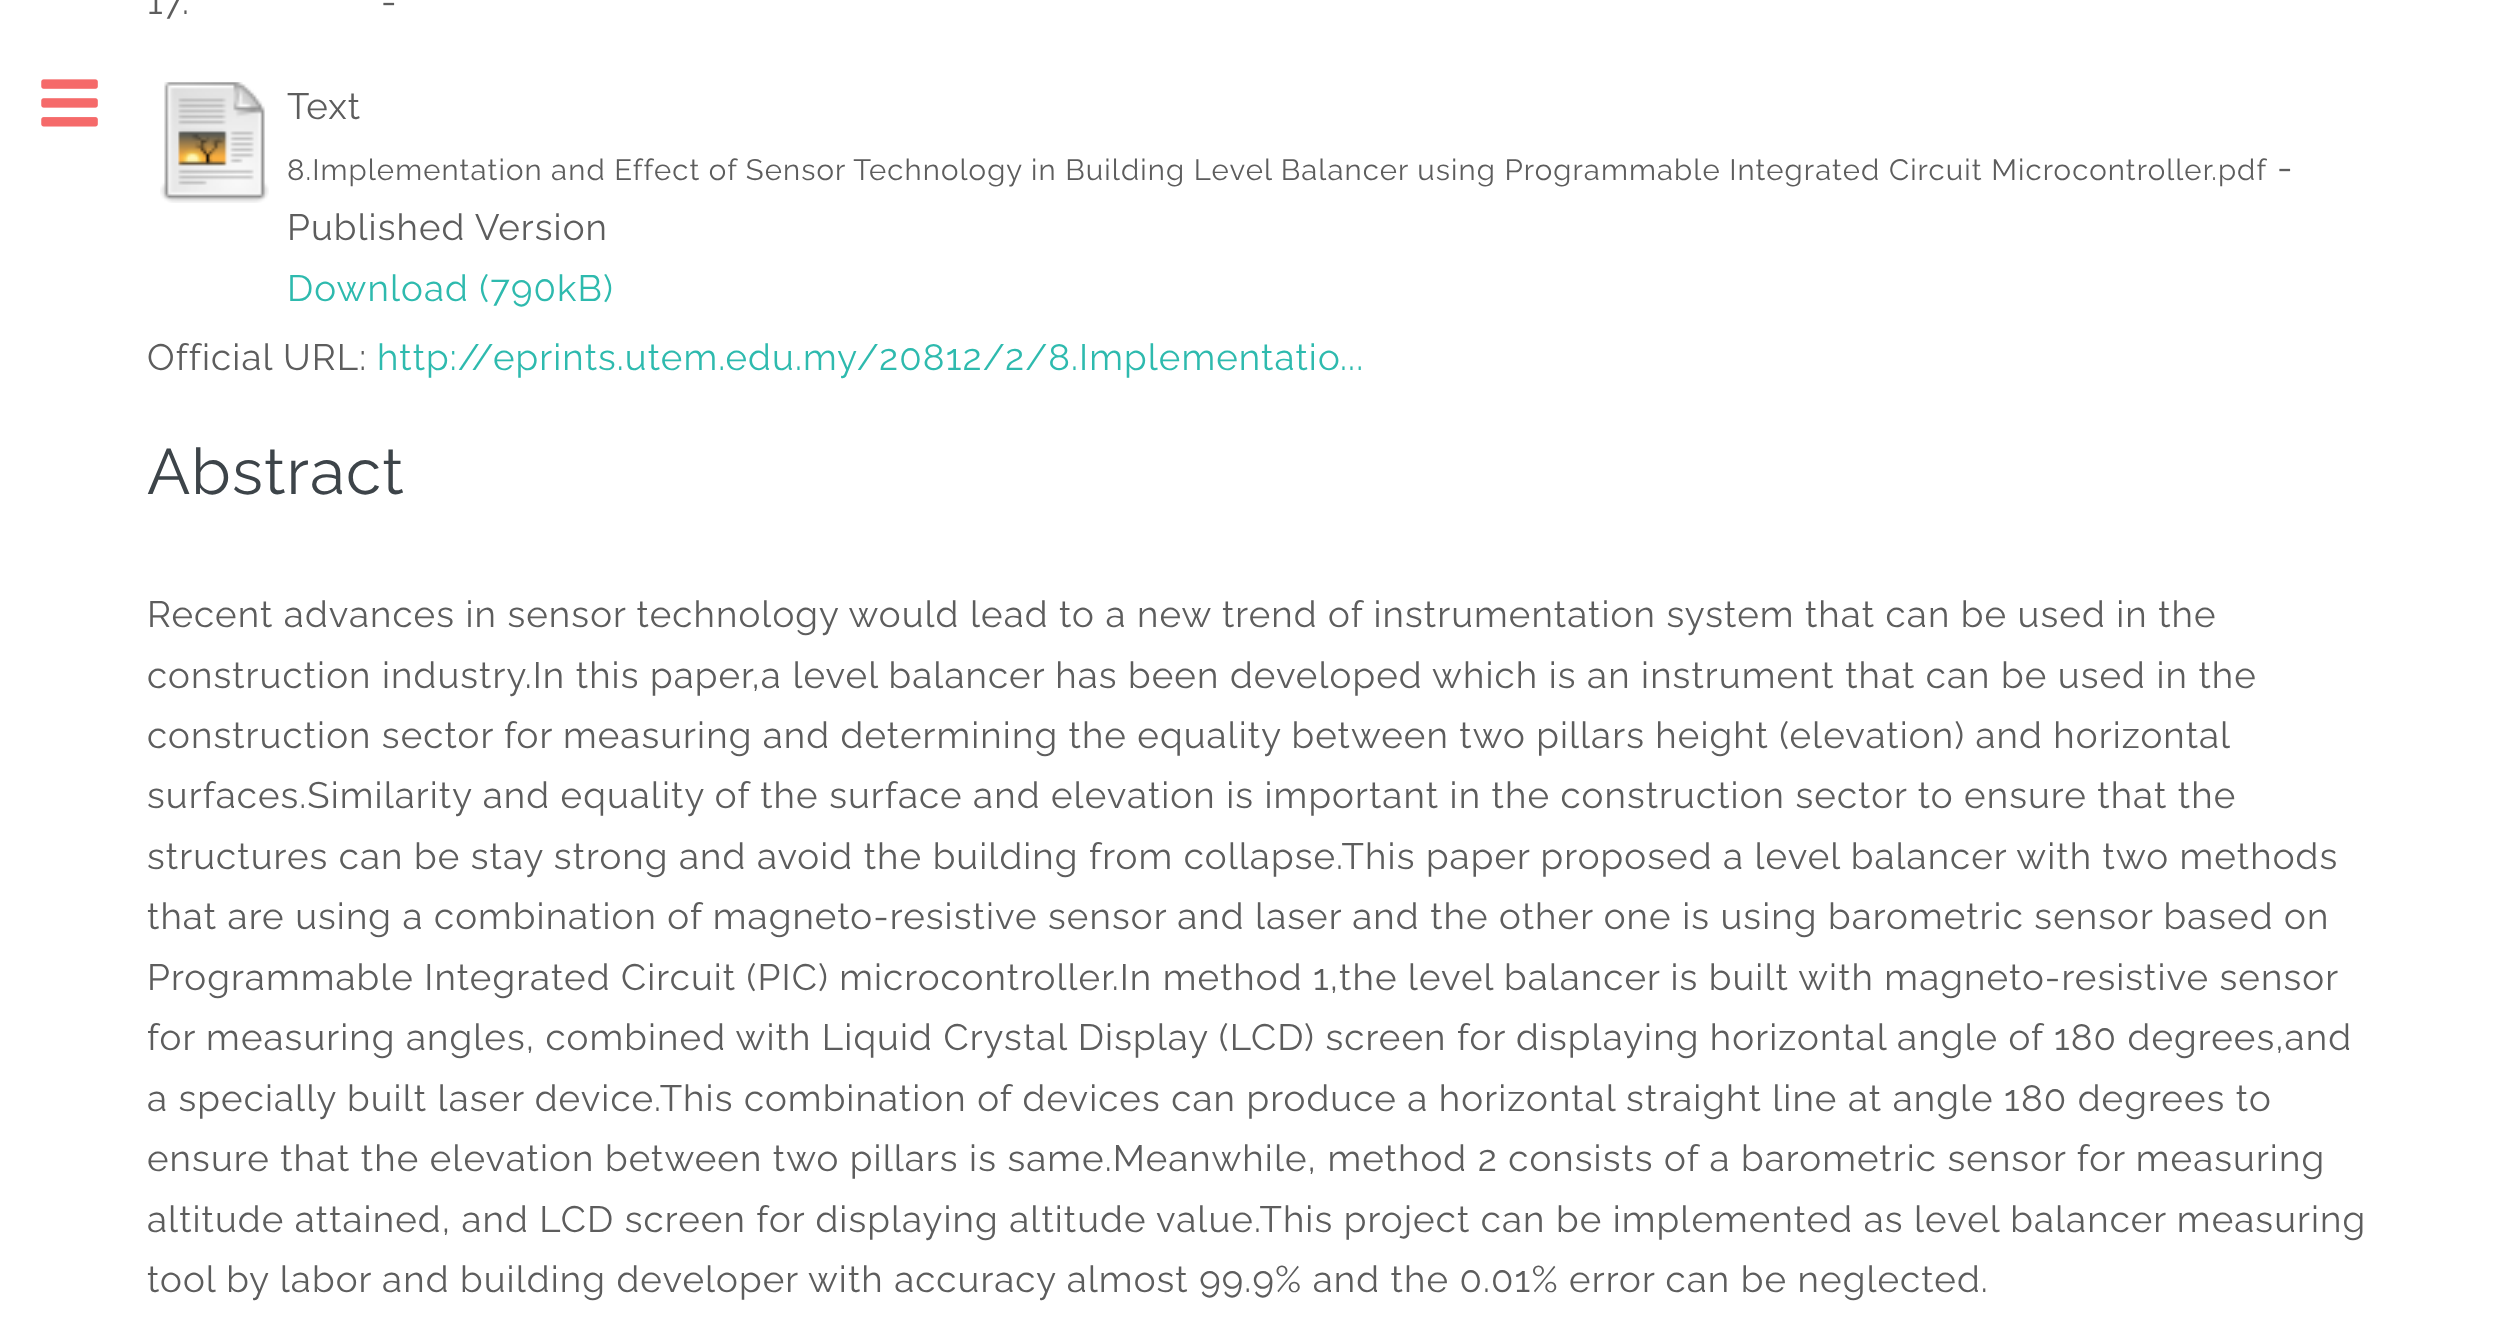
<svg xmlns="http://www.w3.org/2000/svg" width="2516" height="1330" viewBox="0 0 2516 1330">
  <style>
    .t1 { font: 36.67px Raleway; letter-spacing: 1.1px; fill: #5d5d5d; }
    .t2 { font: 29.33px Raleway; letter-spacing: 1.1px; fill: #5d5d5d; }
    .t3 { font: 36.67px Raleway; letter-spacing: 1.1px; fill: #2ebaae; }
    .t4 { font: 64px Raleway; letter-spacing: 1.1px; fill: #3d4449; }
  </style>
  <rect width="100%" height="100%" fill="#fff"/>
  <image x="41" y="79" width="57" height="48" href="images/1.png"/>
  <text x="147" y="14" class="t1">17.</text>
  <text x="381" y="14" class="t1">-</text>
  <image x="160" y="82" width="109" height="121" href="images/2.png"/>
  <text x="287" y="119" class="t1">Text</text>
  <text x="287" y="180" word-spacing="-0.1" class="t2">8.Implementation and Effect of Sensor Technology in Building Level Balancer using Programmable Integrated Circuit Microcontroller.pdf</text>
  <text x="2277" y="180" class="t1">-</text>
  <text x="287" y="240" class="t1">Published Version</text>
  <text x="287" y="301" class="t3">Download (790kB)</text>
  <text x="147" y="370" class="t1">Official URL:</text>
  <text x="377" y="370" class="t3">http://eprints.utem.edu.my/20812/2/8.Implementatio...</text>
  <text x="147" y="494" class="t4">Abstract</text>
  <text x="147" y="627" class="t1">Recent advances in sensor technology would lead to a new trend of instrumentation system that can be used in the</text>
  <text x="147" y="688" class="t1">construction industry.In this paper,a level balancer has been developed which is an instrument that can be used in the</text>
  <text x="147" y="748" word-spacing="-0.1" class="t1">construction sector for measuring and determining the equality between two pillars height (elevation) and horizontal</text>
  <text x="147" y="808" class="t1">surfaces.Similarity and equality of the surface and elevation is important in the construction sector to ensure that the</text>
  <text x="147" y="869" class="t1">structures can be stay strong and avoid the building from collapse.This paper proposed a level balancer with two methods</text>
  <text x="147" y="929" class="t1">that are using a combination of magneto-resistive sensor and laser and the other one is using barometric sensor based on</text>
  <text x="147" y="990" word-spacing="-0.1" class="t1">Programmable Integrated Circuit (PIC) microcontroller.In method 1,the level balancer is built with magneto-resistive sensor</text>
  <text x="147" y="1050" class="t1">for measuring angles, combined with Liquid Crystal Display (LCD) screen for displaying horizontal angle of 180 degrees,and</text>
  <text x="147" y="1111" class="t1">a specially built laser device.This combination of devices can produce a horizontal straight line at angle 180 degrees to</text>
  <text x="147" y="1171" class="t1">ensure that the elevation between two pillars is same.Meanwhile, method 2 consists of a barometric sensor for measuring</text>
  <text x="147" y="1232" class="t1">altitude attained, and LCD screen for displaying altitude value.This project can be implemented as level balancer measuring</text>
  <text x="147" y="1292" class="t1">tool by labor and building developer with accuracy almost 99.9% and the 0.01% error can be neglected.</text>
</svg>
